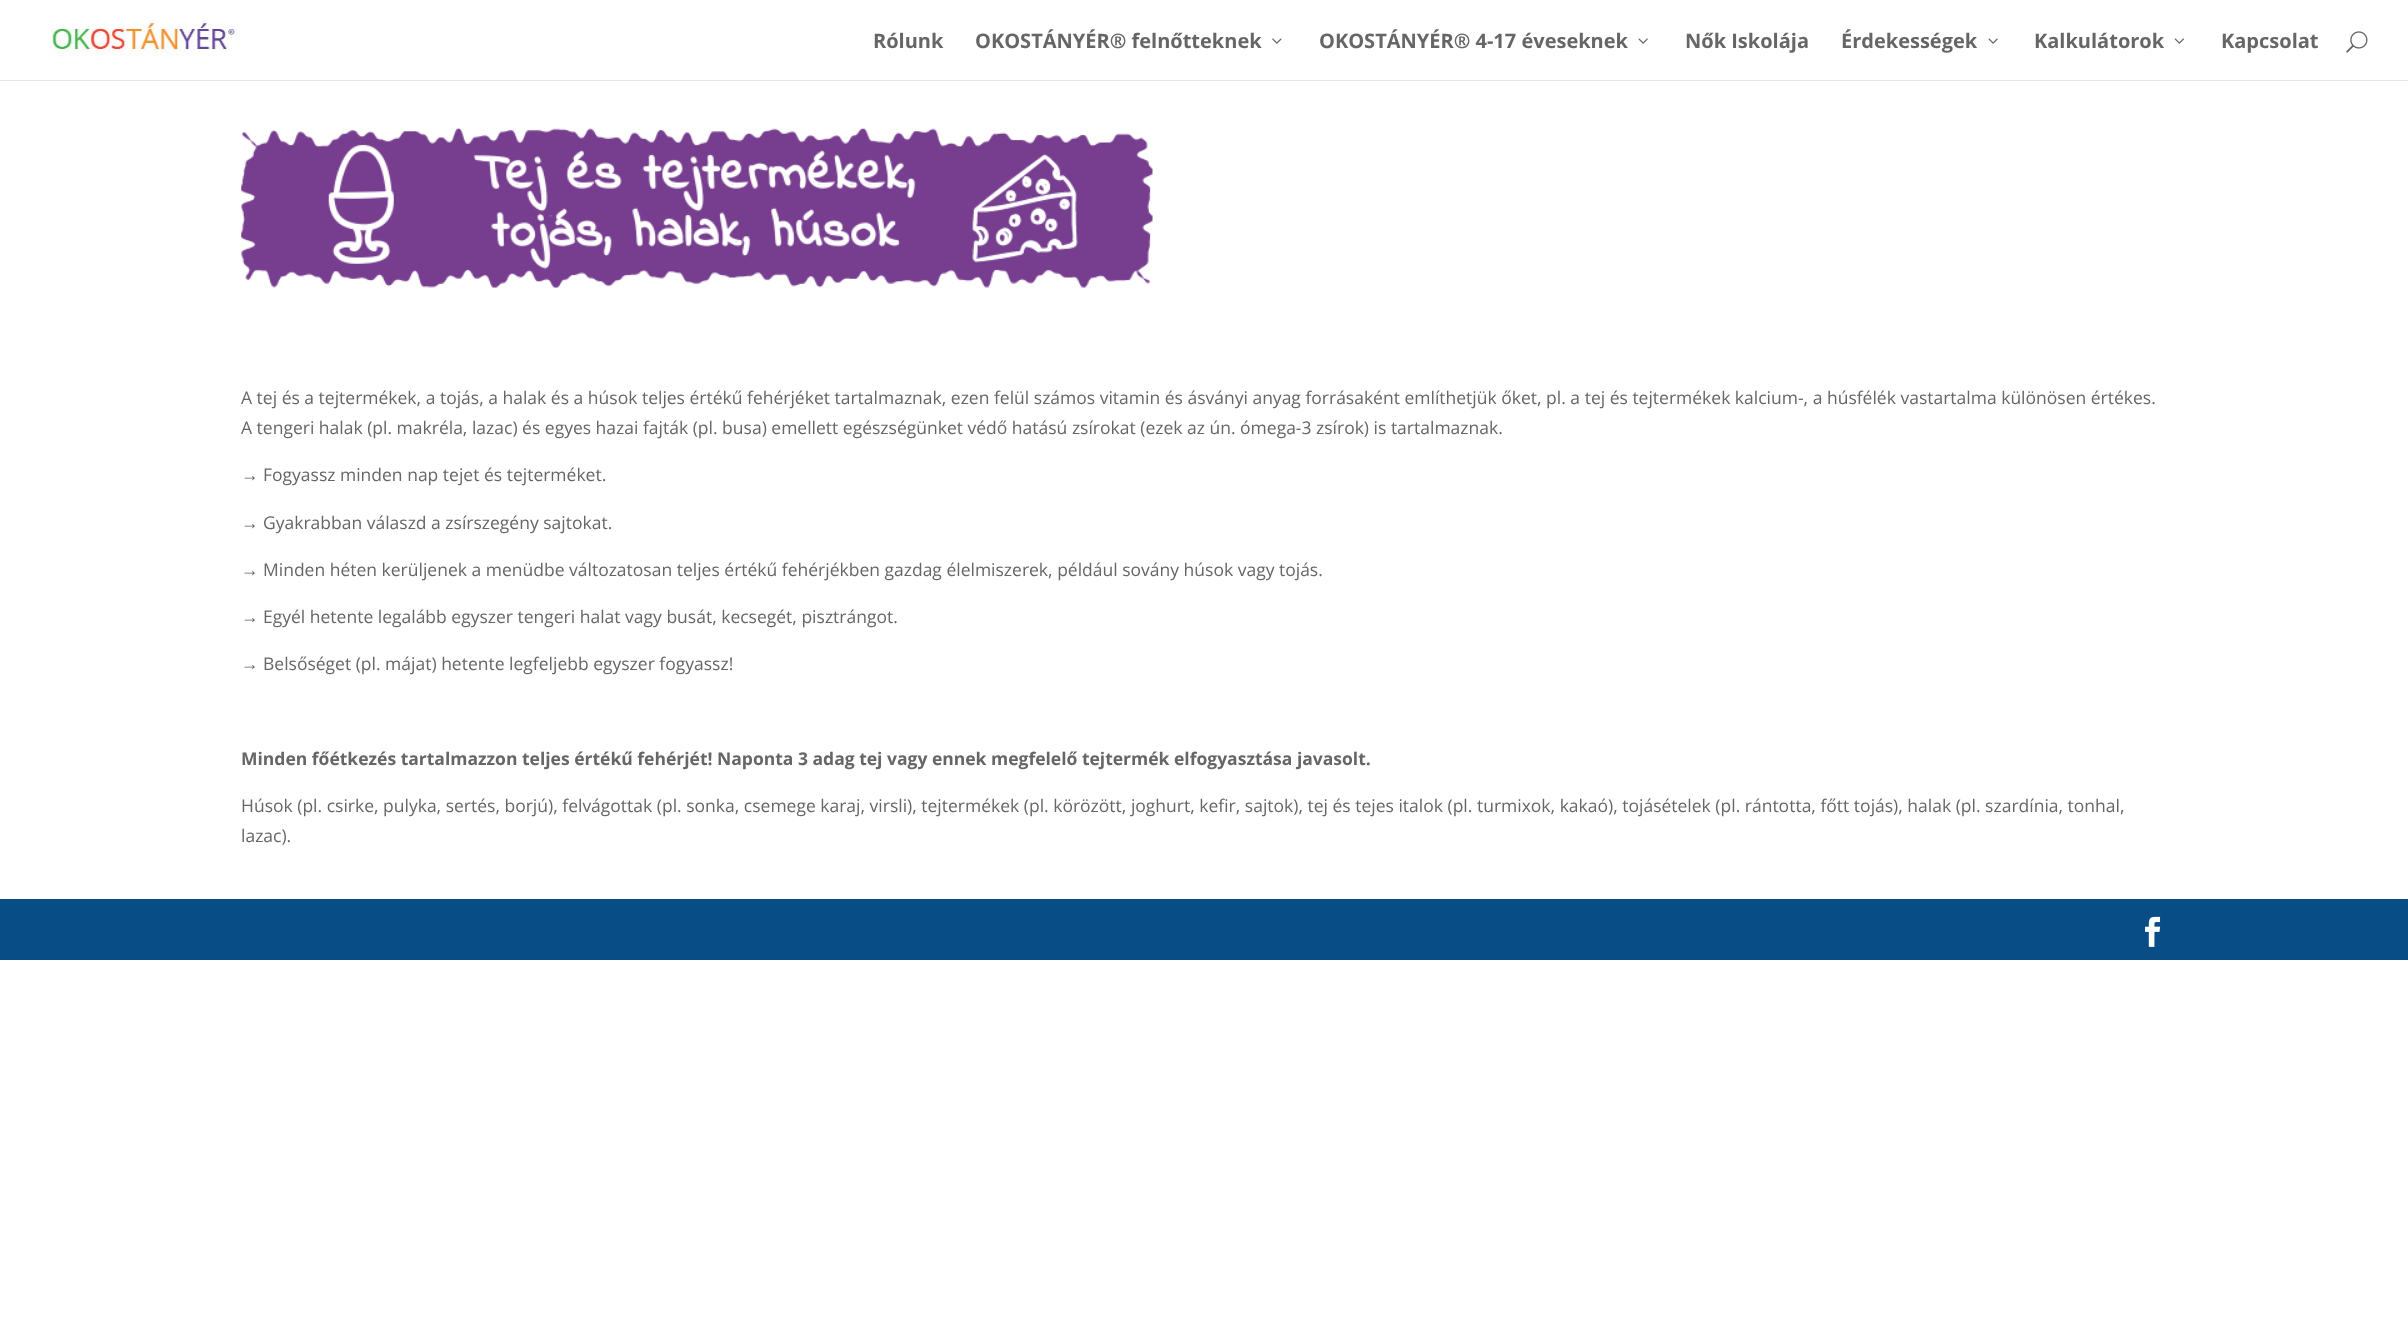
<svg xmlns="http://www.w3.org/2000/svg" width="2408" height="1319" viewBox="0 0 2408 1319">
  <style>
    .t1 { font: bold 20px Open Sans; fill: #666; }
    .t2 { font: 17.5px Open Sans; fill: #666; }
    .t3 { font: 17.5px Liberation Sans; fill: #666; }
    .t4 { font: bold 17.5px Open Sans; fill: #666; }
  </style>
  <rect width="100%" height="100%" fill="#fff"/>
  <path d="M0 80V81H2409V1V80Z" fill="#e6e6e6"/>
  <image x="51" y="20" width="187" height="36" href="images/1.png"/>
  <text x="873" y="48" class="t1">Rólunk</text>
  <text x="975" y="48" class="t1">OKOSTÁNYÉR® felnőtteknek</text>
  <image x="1272" y="38" width="10" height="6" href="images/2.png"/>
  <text x="1319" y="48" class="t1">OKOSTÁNYÉR® 4-17 éveseknek</text>
  <image x="1638" y="38" width="10" height="6" href="images/3.png"/>
  <text x="1685" y="48" class="t1">Nők Iskolája</text>
  <text x="1841" y="48" class="t1">Érdekességek</text>
  <image x="1988" y="38" width="10" height="6" href="images/3.png"/>
  <text x="2034" y="48" class="t1">Kalkulátorok</text>
  <image x="2174" y="38" width="10" height="6" href="images/4.png"/>
  <text x="2221" y="48" class="t1">Kapcsolat</text>
  <image x="2346" y="31" width="22" height="22" href="images/5.png"/>
  <image x="241" y="128" width="912" height="160" href="images/6.png"/>
  <text x="241" y="404" class="t2">A tej és a tejtermékek, a tojás, a halak és a húsok teljes értékű fehérjéket tartalmaznak, ezen felül számos vitamin és ásványi anyag forrásaként említhetjük őket, pl. a tej és tejtermékek kalcium-, a húsfélék vastartalma különösen értékes.</text>
  <text x="241" y="434" class="t2">A tengeri halak (pl. makréla, lazac) és egyes hazai fajták (pl. busa) emellett egészségünket védő hatású zsírokat (ezek az ún. ómega-3 zsírok) is tartalmaznak.</text>
  <text x="241" y="481" class="t3">→</text>
  <text x="263" y="481" class="t2">Fogyassz minden nap tejet és tejterméket.</text>
  <text x="241" y="529" class="t3">→</text>
  <text x="263" y="529" class="t2">Gyakrabban válaszd a zsírszegény sajtokat.</text>
  <text x="241" y="576" class="t3">→</text>
  <text x="263" y="576" class="t2">Minden héten kerüljenek a menüdbe változatosan teljes értékű fehérjékben gazdag élelmiszerek, például sovány húsok vagy tojás.</text>
  <text x="241" y="623" class="t3">→</text>
  <text x="263" y="623" class="t2">Egyél hetente legalább egyszer tengeri halat vagy busát, kecsegét, pisztrángot.</text>
  <text x="241" y="670" class="t3">→</text>
  <text x="263" y="670" class="t2">Belsőséget (pl. májat) hetente legfeljebb egyszer fogyassz!</text>
  <text x="241" y="765" class="t4">Minden főétkezés tartalmazzon teljes értékű fehérjét! Naponta 3 adag tej vagy ennek megfelelő tejtermék elfogyasztása javasolt.</text>
  <text x="241" y="812" class="t2">Húsok (pl. csirke, pulyka, sertés, borjú), felvágottak (pl. sonka, csemege karaj, virsli), tejtermékek (pl. körözött, joghurt, kefir, sajtok), tej és tejes italok (pl. turmixok, kakaó), tojásételek (pl. rántotta, főtt tojás), halak (pl. szardínia, tonhal,</text>
  <text x="241" y="842" class="t2">lazac).</text>
  <rect x="0" y="899" width="2408" height="61" fill="#084d85"/>
  <image x="2145" y="916" width="16" height="31" href="images/7.png"/>
</svg>
